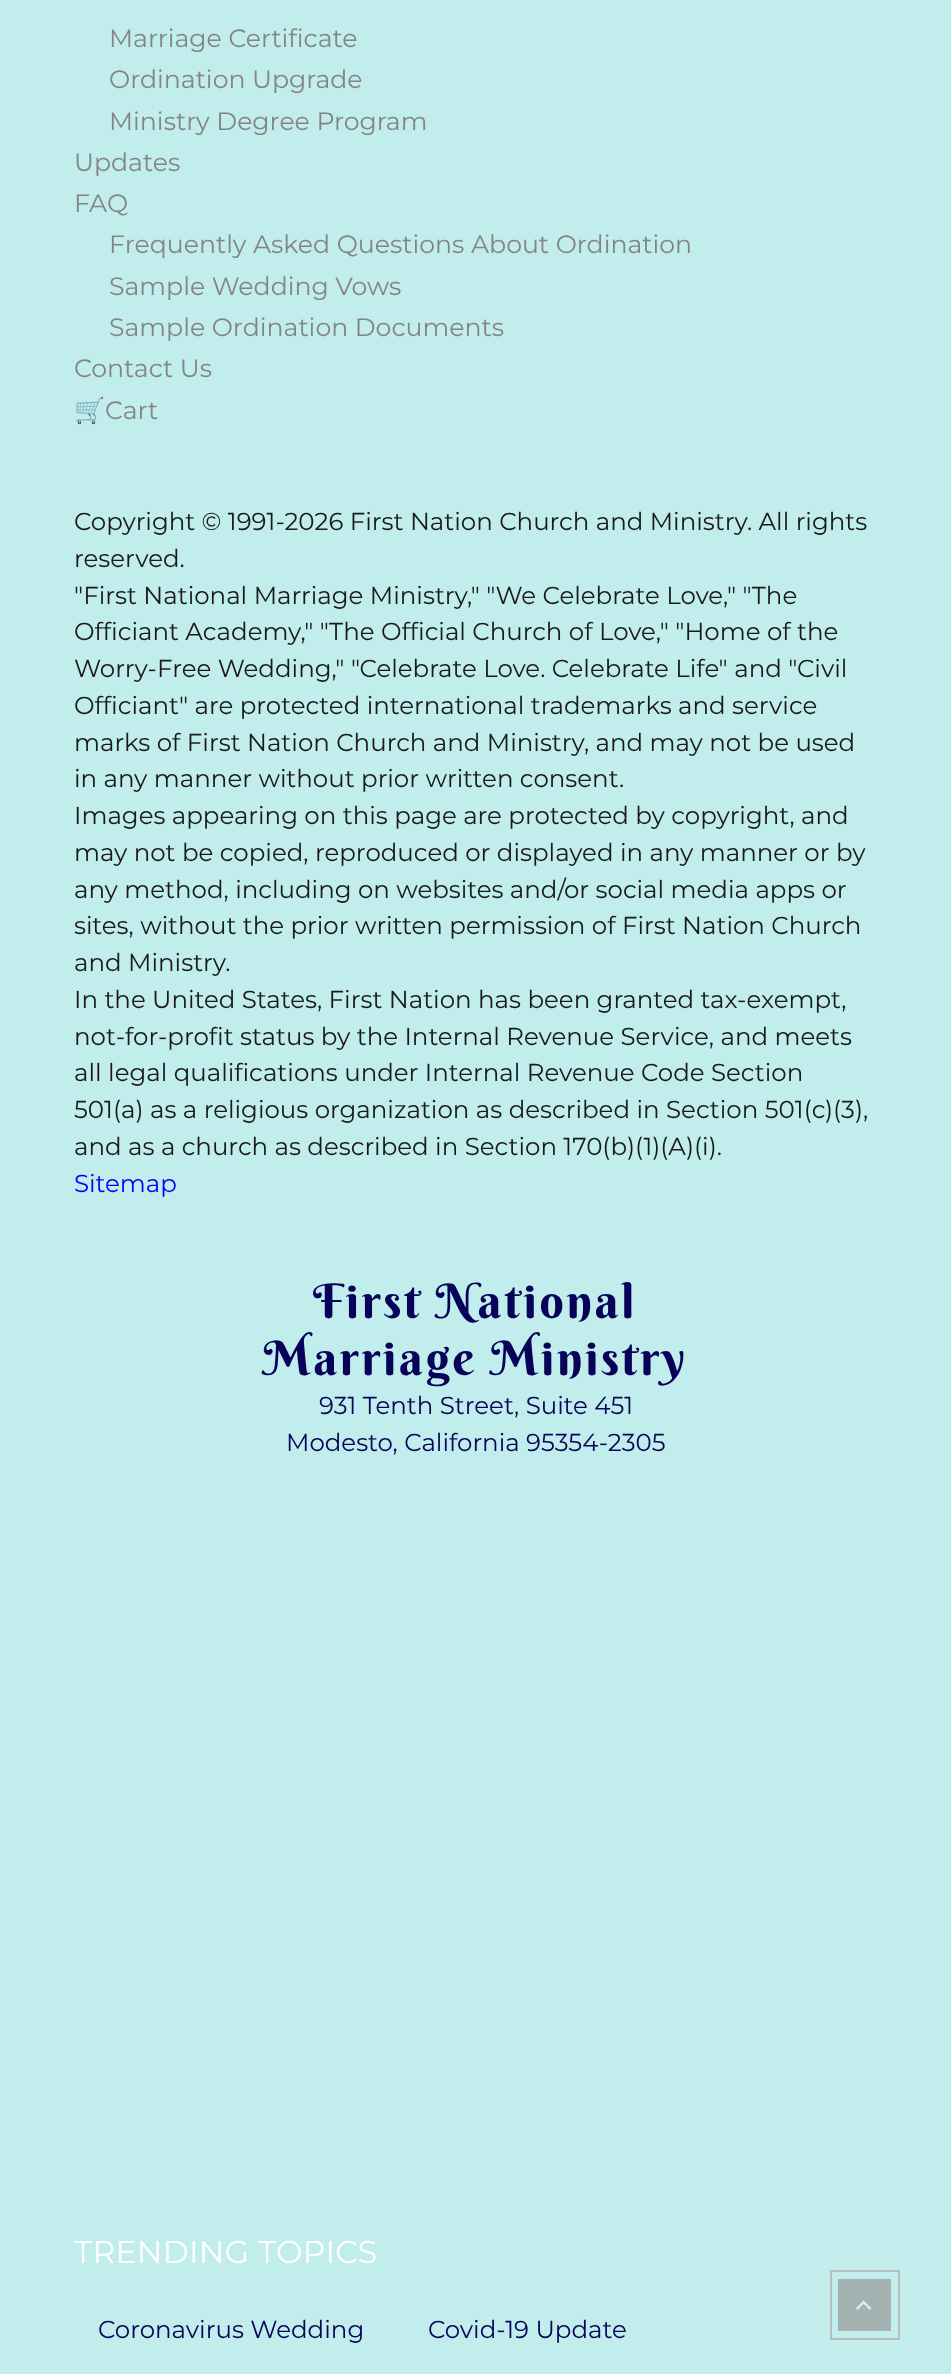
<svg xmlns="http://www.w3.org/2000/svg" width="951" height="2374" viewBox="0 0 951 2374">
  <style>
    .t1 { font: 25.2px Montserrat; fill: #848484; }
    .t2 { font: 25.2px Noto Color Emoji; fill: #848484; }
    .t3 { font: 24.5px Montserrat; fill: #191919; }
    .t4 { font: 24.5px Montserrat; fill: #00f; }
    .t5 { font: 47.5px Berkshire Swash; letter-spacing: 2.75px; fill: #080358; }
    .t6 { font: 24.5px Montserrat; fill: #080358; }
    .t7 { font: 31.5px Montserrat; letter-spacing: 0.3px; fill: #fff; }
  </style>
  <rect width="100%" height="100%" fill="#c1edec"/>
  <text x="109" y="47" class="t1">Marriage Certificate</text>
  <text x="109" y="88" class="t1">Ordination Upgrade</text>
  <text x="109" y="130" class="t1">Ministry Degree Program</text>
  <text x="74" y="171" class="t1">Updates</text>
  <text x="74" y="212" class="t1">FAQ</text>
  <text x="109" y="253" class="t1">Frequently Asked Questions About Ordination</text>
  <text x="109" y="295" class="t1">Sample Wedding Vows</text>
  <text x="109" y="336" class="t1">Sample Ordination Documents</text>
  <text x="74" y="377" class="t1">Contact Us</text>
  <text x="74" y="419" class="t2">🛒</text>
  <text x="105" y="419" class="t1">Cart</text>
  <text x="74" y="530" class="t3">Copyright © 1991-2026 First Nation Church and Ministry. All rights</text>
  <text x="74" y="567" class="t3">reserved.</text>
  <text x="74" y="604" class="t3">"First National Marriage Ministry," "We Celebrate Love," "The</text>
  <text x="74" y="640" class="t3">Officiant Academy," "The Official Church of Love," "Home of the</text>
  <text x="74" y="677" class="t3">Worry-Free Wedding," "Celebrate Love. Celebrate Life" and "Civil</text>
  <text x="74" y="714" class="t3">Officiant" are protected international trademarks and service</text>
  <text x="74" y="751" class="t3">marks of First Nation Church and Ministry, and may not be used</text>
  <text x="74" y="787" class="t3">in any manner without prior written consent.</text>
  <text x="74" y="824" class="t3">Images appearing on this page are protected by copyright, and</text>
  <text x="74" y="861" class="t3">may not be copied, reproduced or displayed in any manner or by</text>
  <text x="74" y="898" class="t3">any method, including on websites and/or social media apps or</text>
  <text x="74" y="934" class="t3">sites, without the prior written permission of First Nation Church</text>
  <text x="74" y="971" class="t3">and Ministry.</text>
  <text x="74" y="1008" class="t3">In the United States, First Nation has been granted tax-exempt,</text>
  <text x="74" y="1045" class="t3">not-for-profit status by the Internal Revenue Service, and meets</text>
  <text x="74" y="1081" class="t3">all legal qualifications under Internal Revenue Code Section</text>
  <text x="74" y="1118" class="t3">501(a) as a religious organization as described in Section 501(c)(3),</text>
  <text x="74" y="1155" class="t3">and as a church as described in Section 170(b)(1)(A)(i).</text>
  <text x="74" y="1192" class="t4">Sitemap</text>
  <text x="313" y="1318" class="t5">First National</text>
  <text x="263" y="1375" class="t5">Marriage Ministry</text>
  <text x="319" y="1414" class="t6">931 Tenth Street, Suite 451</text>
  <text x="286" y="1451" class="t6">Modesto, California 95354-2305</text>
  <text x="74" y="2263" class="t7">TRENDING TOPICS</text>
  <text x="98" y="2338" class="t6">Coronavirus Wedding</text>
  <text x="428" y="2338" class="t6">Covid-19 Update</text>
  <rect x="831" y="2271" width="68" height="68" fill="none" stroke="#bbb" stroke-width="2"/>
  <rect x="838" y="2279" width="53" height="52" fill="#a5b2b2"/>
  <image x="856" y="2300" width="16" height="10" href="images/1.png"/>
</svg>
